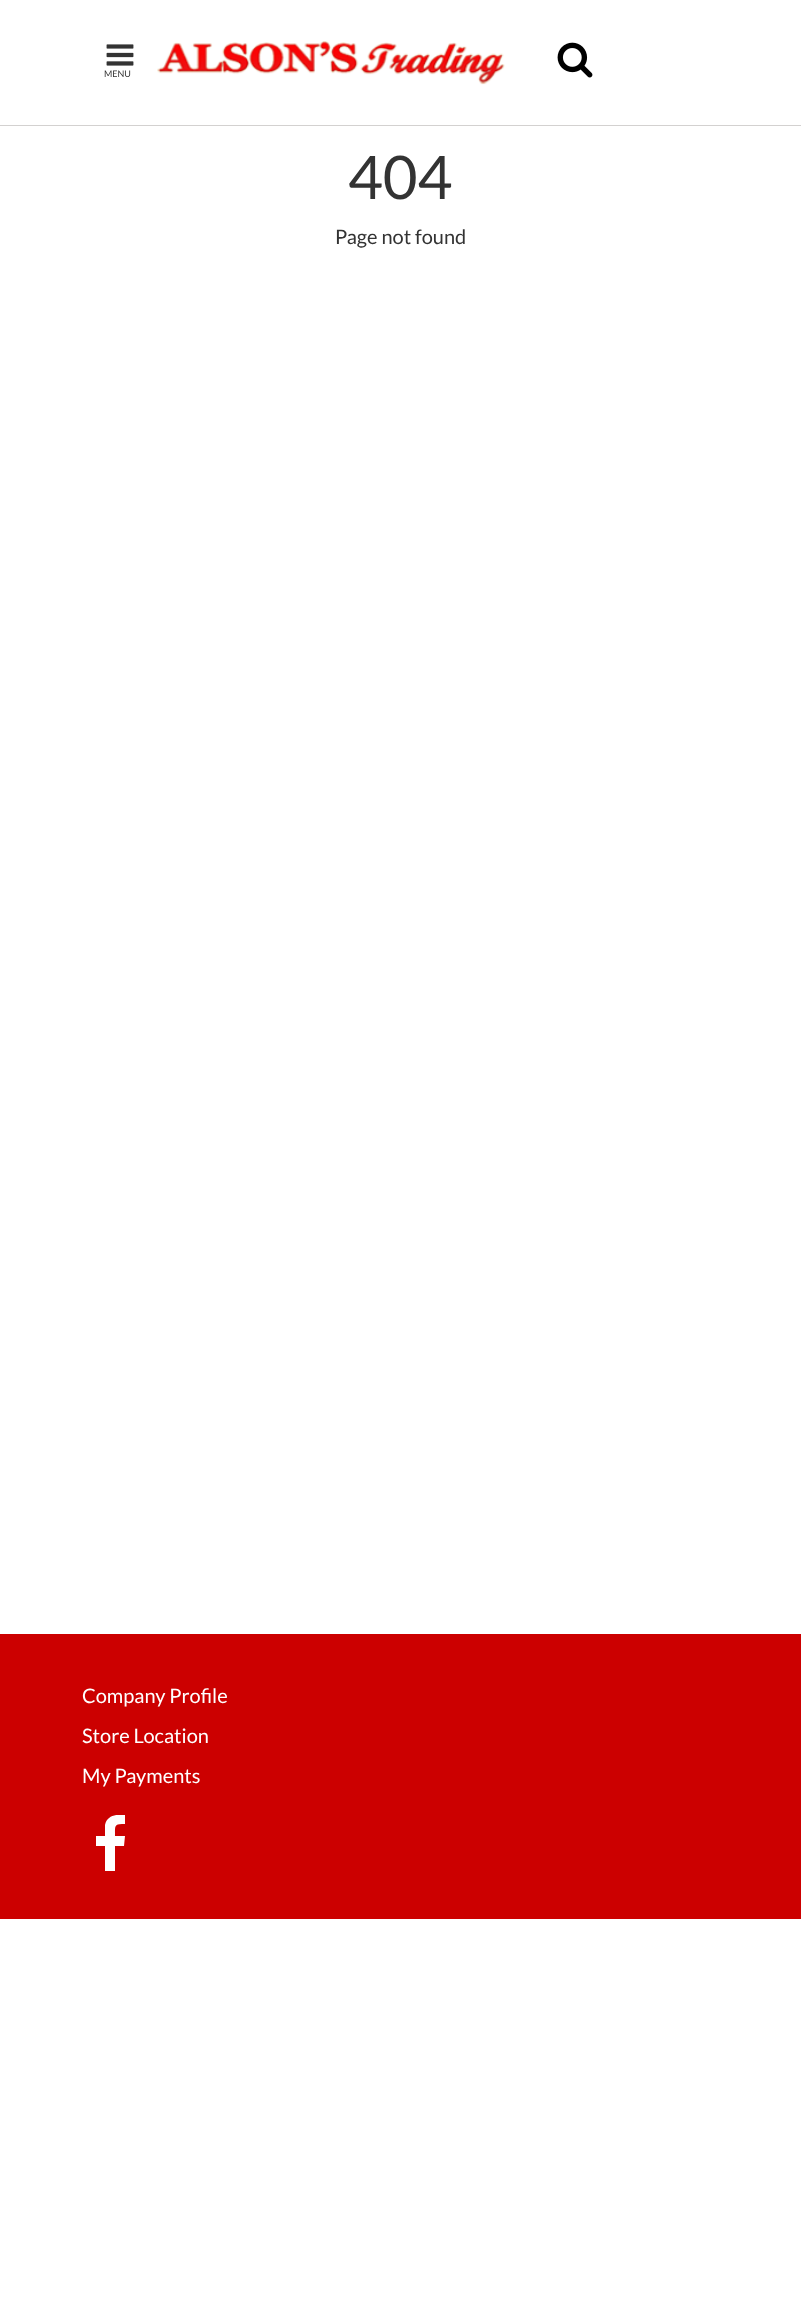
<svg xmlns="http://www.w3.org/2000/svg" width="801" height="2322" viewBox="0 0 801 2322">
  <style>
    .t1 { font: 9px Lato; fill: #333; }
    .t2 { font: 60px Lato; fill: #333; }
    .t3 { font: 20px Lato; fill: #333; }
    .t4 { font: 20px Lato; fill: #fff; }
  </style>
  <defs>
    <clipPath id="clip1"><rect x="83" y="1815" width="56" height="56"/></clipPath>
  </defs>
  <rect width="100%" height="100%" fill="#fff"/>
  <rect x="0" y="125" width="801" height="1" fill="#d3d1d0"/>
  <image x="106" y="44" width="28" height="22" href="images/1.png"/>
  <text x="104" y="77" class="t1">MENU</text>
  <image x="157" y="41" width="348" height="44" href="images/2.png"/>
  <image x="557" y="42" width="36" height="36" href="images/3.png"/>
  <text x="348" y="199" class="t2">404</text>
  <text x="335" y="244" class="t3">Page not found</text>
  <rect x="0" y="1634" width="801" height="285" fill="#c00"/>
  <text x="82" y="1703" class="t4">Company Profile</text>
  <text x="82" y="1743" class="t4">Store Location</text>
  <text x="82" y="1783" class="t4">My Payments</text>
  <g clip-path="url(#clip1)">
    <path d="M115 1871V1846H124L125 1836H115C115 1825 114 1824 125 1824V1815C117 1814 107 1815 105 1825V1836H96V1846H105V1871Z" fill="#fff"/>
  </g>
</svg>
